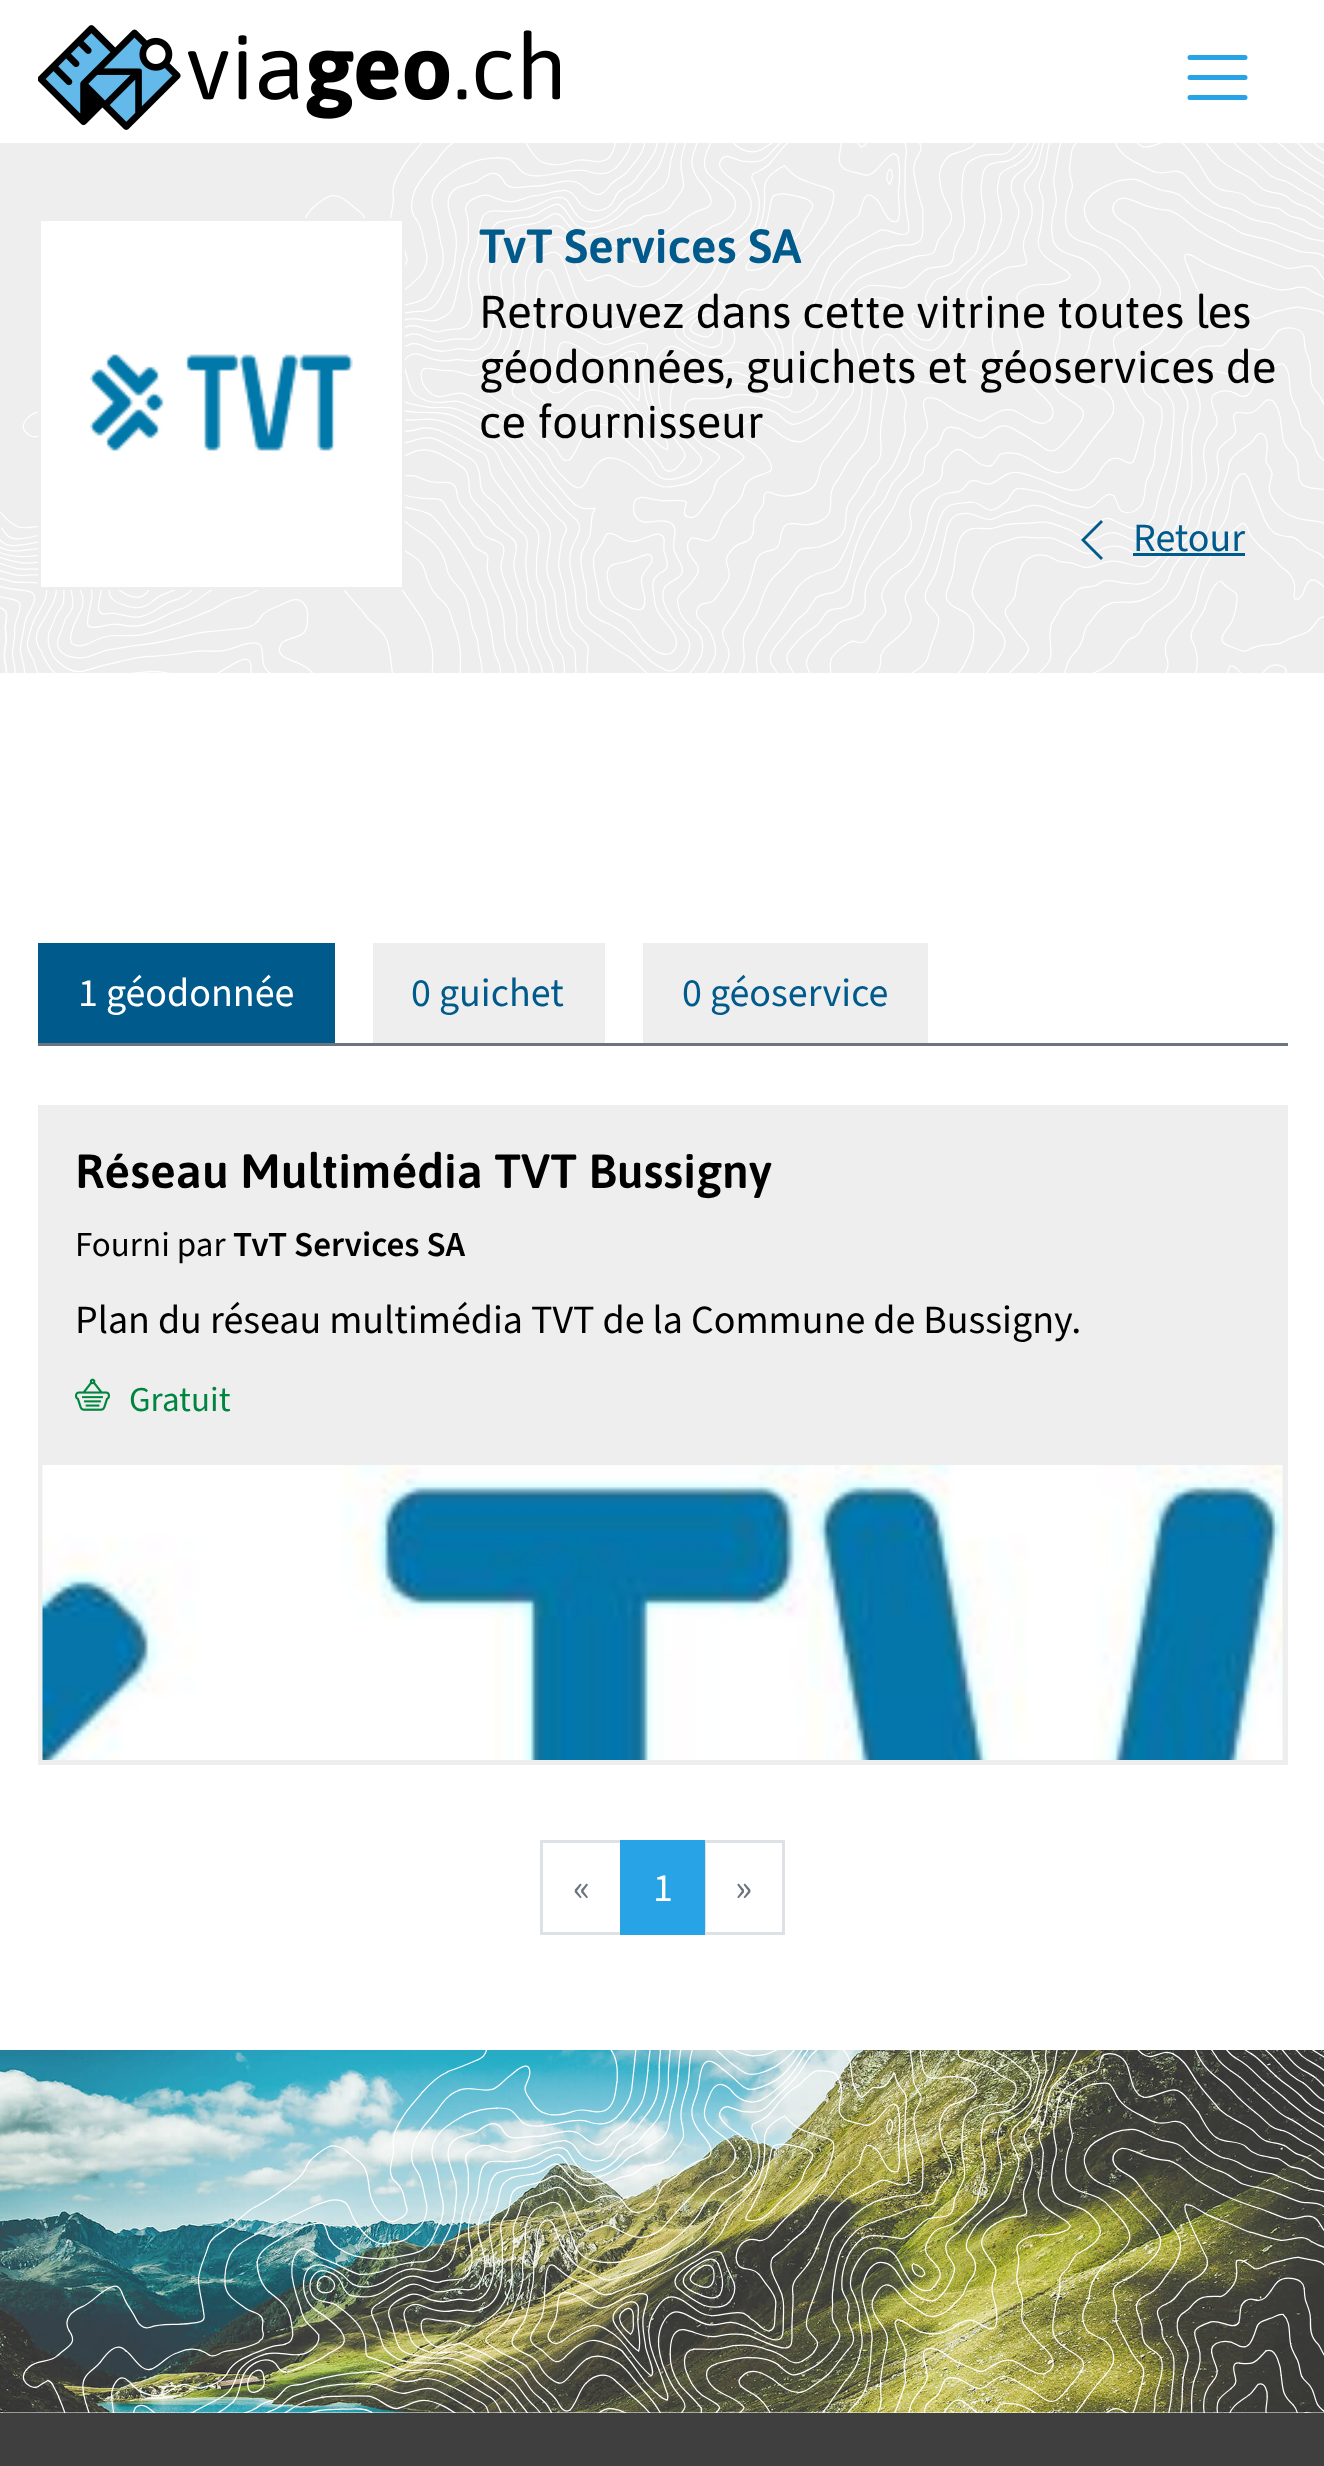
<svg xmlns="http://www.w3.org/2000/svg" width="1324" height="2466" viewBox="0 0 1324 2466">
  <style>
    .t1 { font: 600 48px Asap; fill: #005a8b; }
    .t2 { font: 46px Asap; fill: #000; }
    .t3 { font: 40px Source Sans Pro; fill: #005a8b; }
    .t4 { font: 40px Source Sans Pro; fill: #fff; }
    .t5 { font: 600 48px Asap; fill: #000; }
    .t6 { font: 35px Source Sans Pro; fill: #000; }
    .t7 { font: 600 35px Source Sans Pro; fill: #000; }
    .t8 { font: 40px Source Sans Pro; fill: #000; }
    .t9 { font: 35px Source Sans Pro; fill: #008540; }
    .t10 { font: 40px Source Sans Pro; fill: #6c757d; }
  </style>
  <rect width="100%" height="100%" fill="#fff"/>
  <image x="38" y="25" width="522" height="105" href="images/1.png"/>
  <path d="M1190 57.5H1245M1190 77.5H1245M1190 97.5H1245" fill="none" stroke="#28a3e5" stroke-width="5" stroke-linecap="round"/>
  <rect x="0" y="143" width="1324" height="530" fill="#efeeee"/>
  <image x="0" y="143" width="1324" height="530" href="images/2.png"/>
  <rect x="39.5" y="219.5" width="364" height="369" fill="#fff" stroke="#efeeee" stroke-width="3"/>
  <image x="90" y="353" width="263" height="99" href="images/3.png"/>
  <text x="479" y="263" class="t1">TvT Services SA</text>
  <text x="479" y="328" class="t2">Retrouvez dans cette vitrine toutes les</text>
  <text x="479" y="383" class="t2">géodonnées, guichets et géoservices de</text>
  <text x="479" y="438" class="t2">ce fournisseur</text>
  <path d="M1101 520L1103 522L1085 540L1103 558L1101 560L1081 540Z" fill="#005a8b"/>
  <text x="1133" y="551" class="t3">Retour</text>
  <rect x="1133" y="553" width="112" height="3" fill="#005a8b"/>
  <rect x="38" y="1043" width="1250" height="3" fill="#6c757d"/>
  <rect x="38" y="943" width="297" height="100" fill="#005a8b"/>
  <text x="78" y="1006" class="t4">1 géodonnée</text>
  <rect x="373" y="943" width="232" height="100" fill="#efeeee"/>
  <text x="411" y="1006" class="t3">0 guichet</text>
  <rect x="643" y="943" width="285" height="100" fill="#efeeee"/>
  <text x="682" y="1006" class="t3">0 géoservice</text>
  <rect x="38" y="1105" width="1250" height="660" fill="#efeeee"/>
  <text x="75" y="1188" class="t5">Réseau Multimédia TVT Bussigny</text>
  <text x="75" y="1256" class="t6">Fourni par</text>
  <text x="233" y="1256" class="t7">TvT Services SA</text>
  <text x="75" y="1333" class="t8">Plan du réseau multimédia TVT de la Commune de Bussigny.</text>
  <image x="75" y="1378" width="35" height="33" href="images/4.png"/>
  <text x="129" y="1411" class="t9">Gratuit</text>
  <image x="42" y="1465" width="1241" height="295" href="images/5.png"/>
  <rect x="541.5" y="1841.5" width="80" height="92" fill="none" stroke="#dee2e6" stroke-width="3"/>
  <text x="573" y="1901" class="t10">«</text>
  <rect x="704.5" y="1841.5" width="79" height="92" fill="none" stroke="#dee2e6" stroke-width="3"/>
  <rect x="620" y="1840" width="85" height="95" fill="#28a3e5"/>
  <text x="653" y="1901" class="t4">1</text>
  <text x="735" y="1901" class="t10">»</text>
  <image x="0" y="2050" width="1324" height="363" href="images/6.png"/>
  <rect x="0" y="2413" width="1324" height="53" fill="#3f3f3f"/>
</svg>
